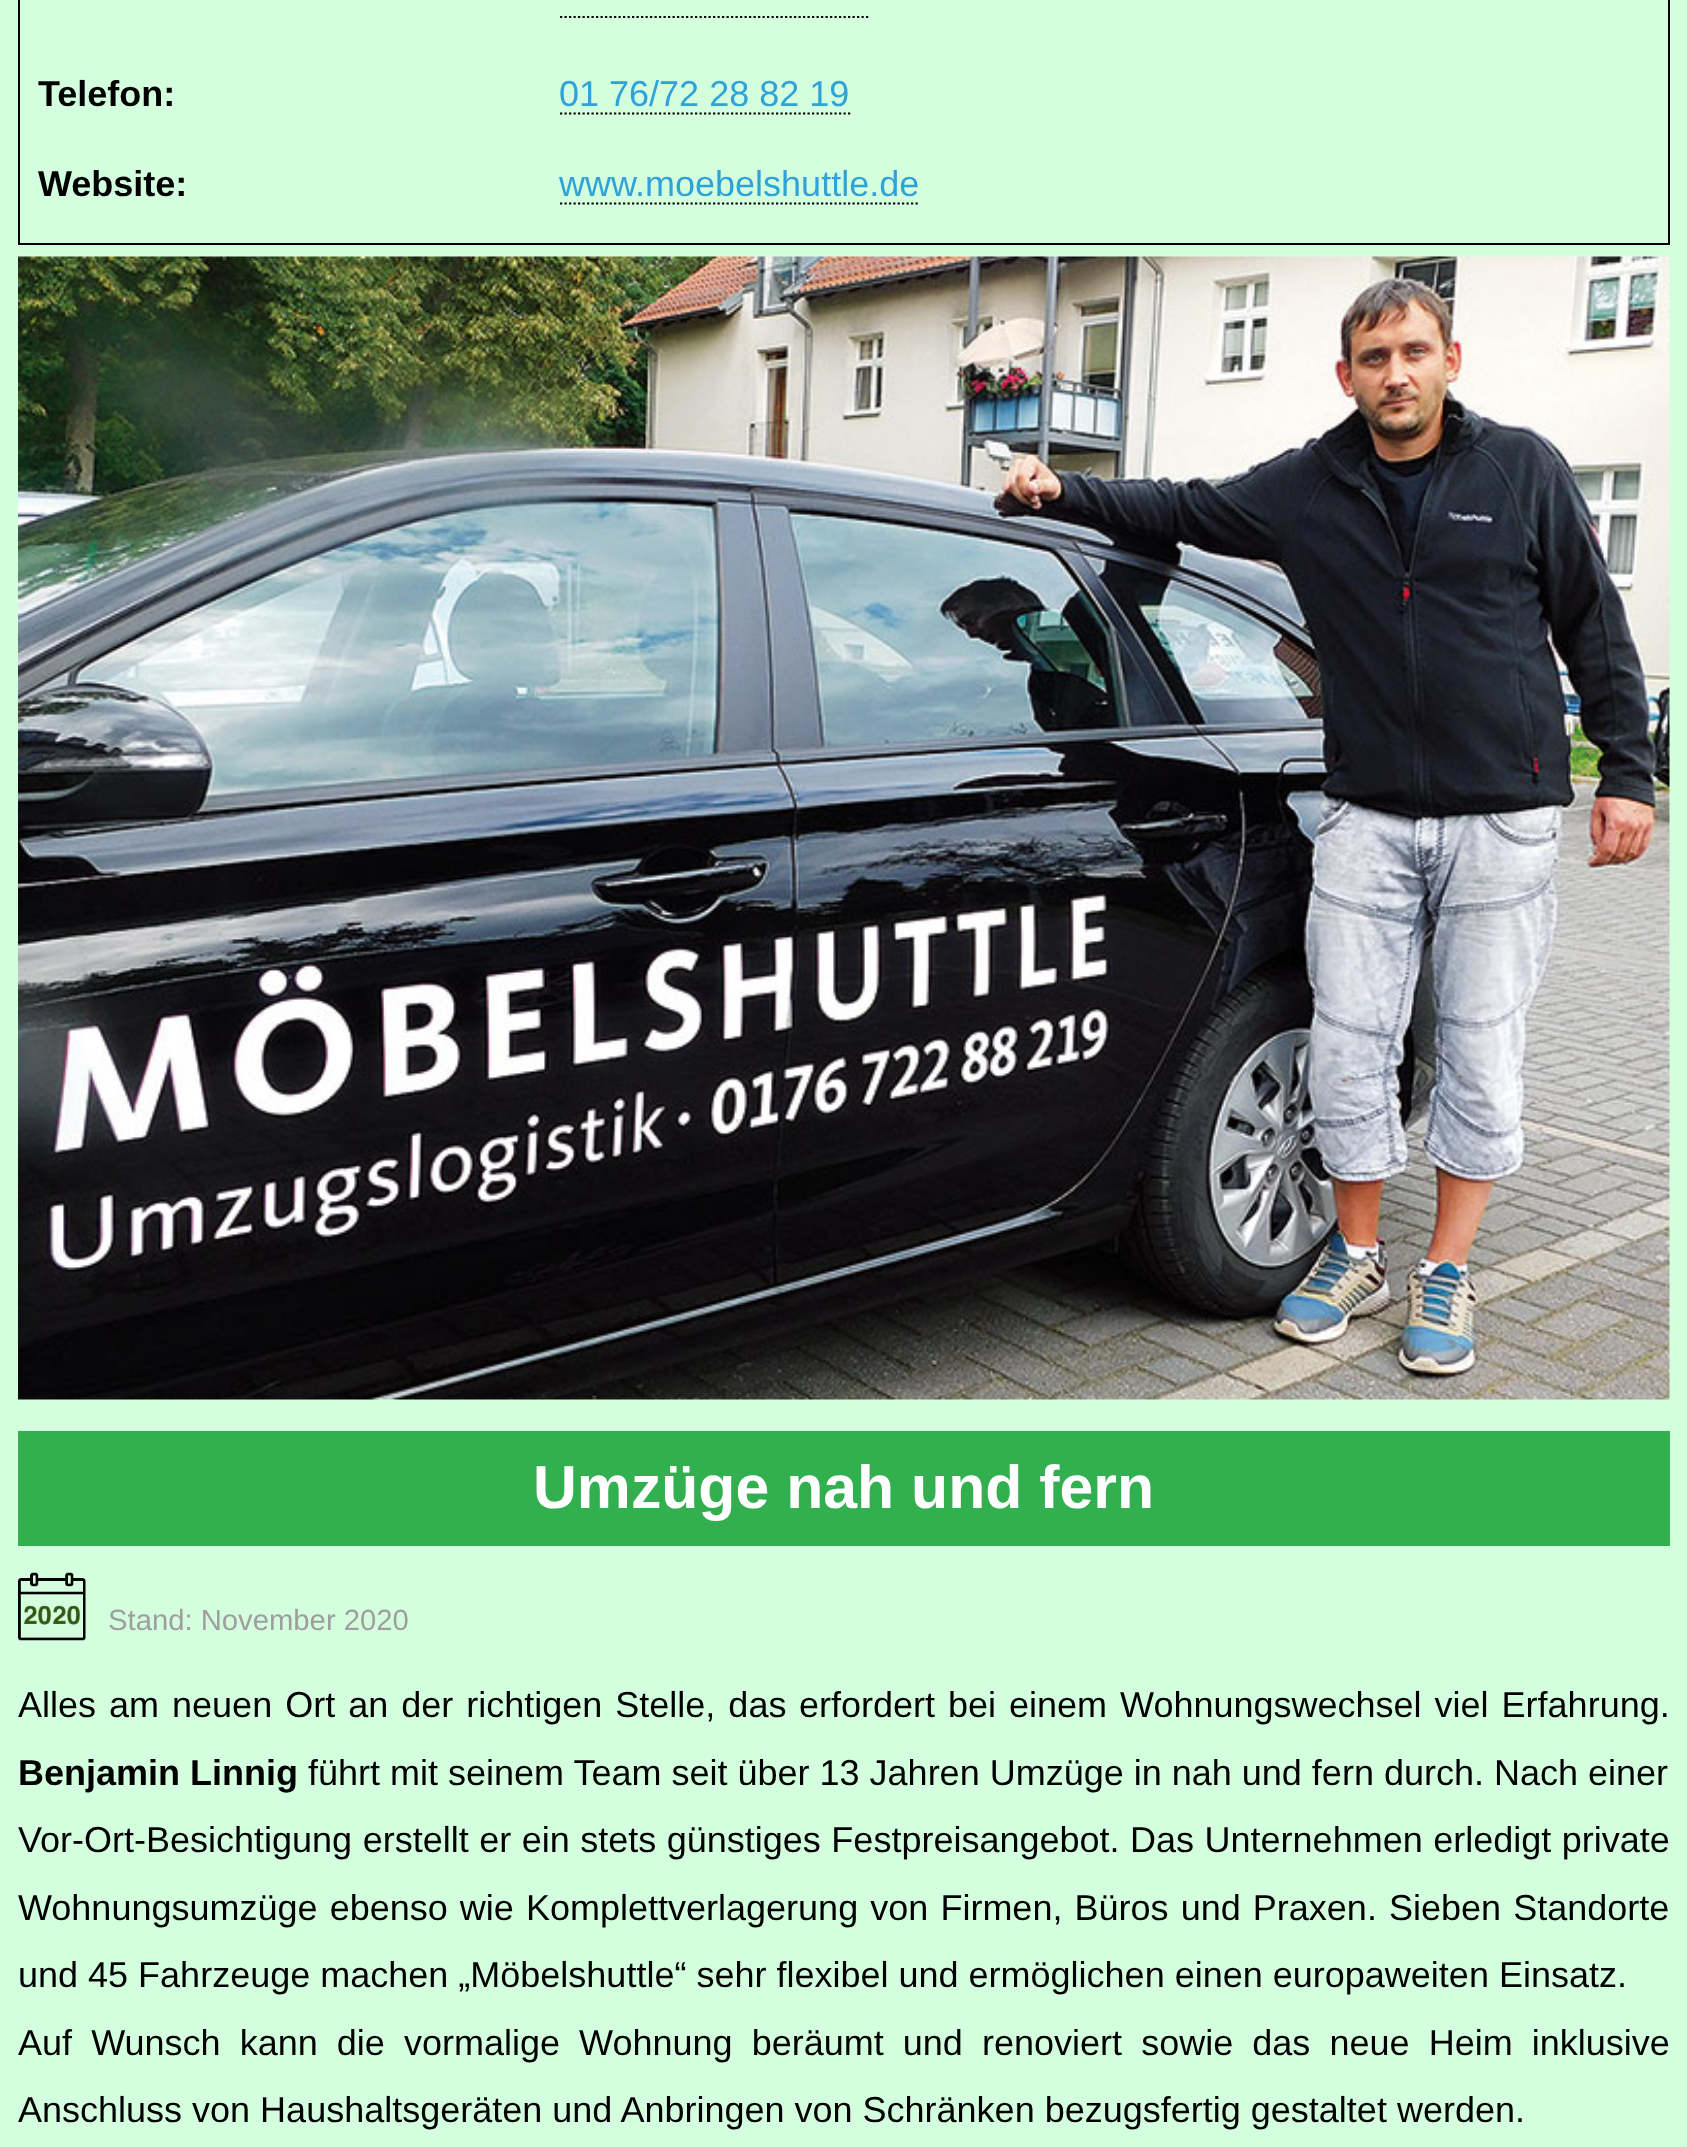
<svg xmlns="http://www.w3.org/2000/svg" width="1687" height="2147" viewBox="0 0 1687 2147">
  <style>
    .t1 { font: bold 36px Liberation Sans; fill: #000; }
    .t2 { font: 36px Liberation Sans; fill: #2fa2d7; }
    .t3 { font: bold 60.75px Liberation Sans; fill: #fff; }
    .t4 { font: 29.25px Liberation Sans; fill: #9e9e9e; }
    .t5 { font: 36px Liberation Sans; fill: #000; }
  </style>
  <rect width="100%" height="100%" fill="#d4ffdf"/>
  <rect x="19" y="-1" width="1650" height="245" fill="none" stroke="#000" stroke-width="2"/>
  <path d="M560 17H868.5" fill="none" stroke="#000" stroke-width="2.2" stroke-dasharray="2.25 2.25"/>
  <text x="38" y="106" class="t1">Telefon:</text>
  <text x="559" y="106" class="t2">01 76/72 28 82 19</text>
  <path d="M560 113.5H850.5" fill="none" stroke="#000" stroke-width="2.2" stroke-dasharray="2.25 2.25"/>
  <text x="38" y="196" class="t1">Website:</text>
  <text x="559" y="196" class="t2">www.moebelshuttle.de</text>
  <path d="M560 203.5H920" fill="none" stroke="#000" stroke-width="2.2" stroke-dasharray="2.25 2.25"/>
  <image x="18" y="256" width="1652" height="1144" href="images/1.png"/>
  <rect x="18" y="1431" width="1652" height="115" fill="#32af4f"/>
  <text x="533" y="1508" class="t3">Umzüge nah und fern</text>
  <image x="18" y="1572" width="68" height="69" href="images/2.png"/>
  <text x="108" y="1630" class="t4">Stand: November 2020</text>
  <text x="18" y="1717" word-spacing="3" class="t5">Alles am neuen Ort an der richtigen Stelle, das</text>
  <text x="799" y="1717" word-spacing="3" class="t5">erfordert bei</text>
  <text x="1009" y="1717" word-spacing="3" class="t5">einem Wohnungswechsel viel Erfahrung.</text>
  <text x="18" y="1785" class="t1">Benjamin Linnig</text>
  <text x="308" y="1785" class="t5">führt mit seinem Team seit über 13 Jahren Umzüge in nah und fern durch. Nach einer</text>
  <text x="18" y="1852" word-spacing="0.5" class="t5">Vor-Ort-Besichtigung erstellt er ein stets günstiges Festpreisangebot. Das Unternehmen erledigt private</text>
  <text x="18" y="1920" word-spacing="2.1" class="t5">Wohnungsumzüge ebenso wie Komplettverlagerung von Firmen, Büros und Praxen. Sieben Standorte</text>
  <text x="18" y="1987" class="t5">und 45 Fahrzeuge machen „Möbelshuttle“ sehr flexibel und ermöglichen einen europaweiten Einsatz.</text>
  <text x="18" y="2055" word-spacing="9.1" class="t5">Auf Wunsch kann die vormalige Wohnung beräumt und renoviert sowie das neue Heim inklusive</text>
  <text x="18" y="2122" class="t5">Anschluss von Haushaltsgeräten und Anbringen von Schränken bezugsfertig gestaltet werden.</text>
</svg>
